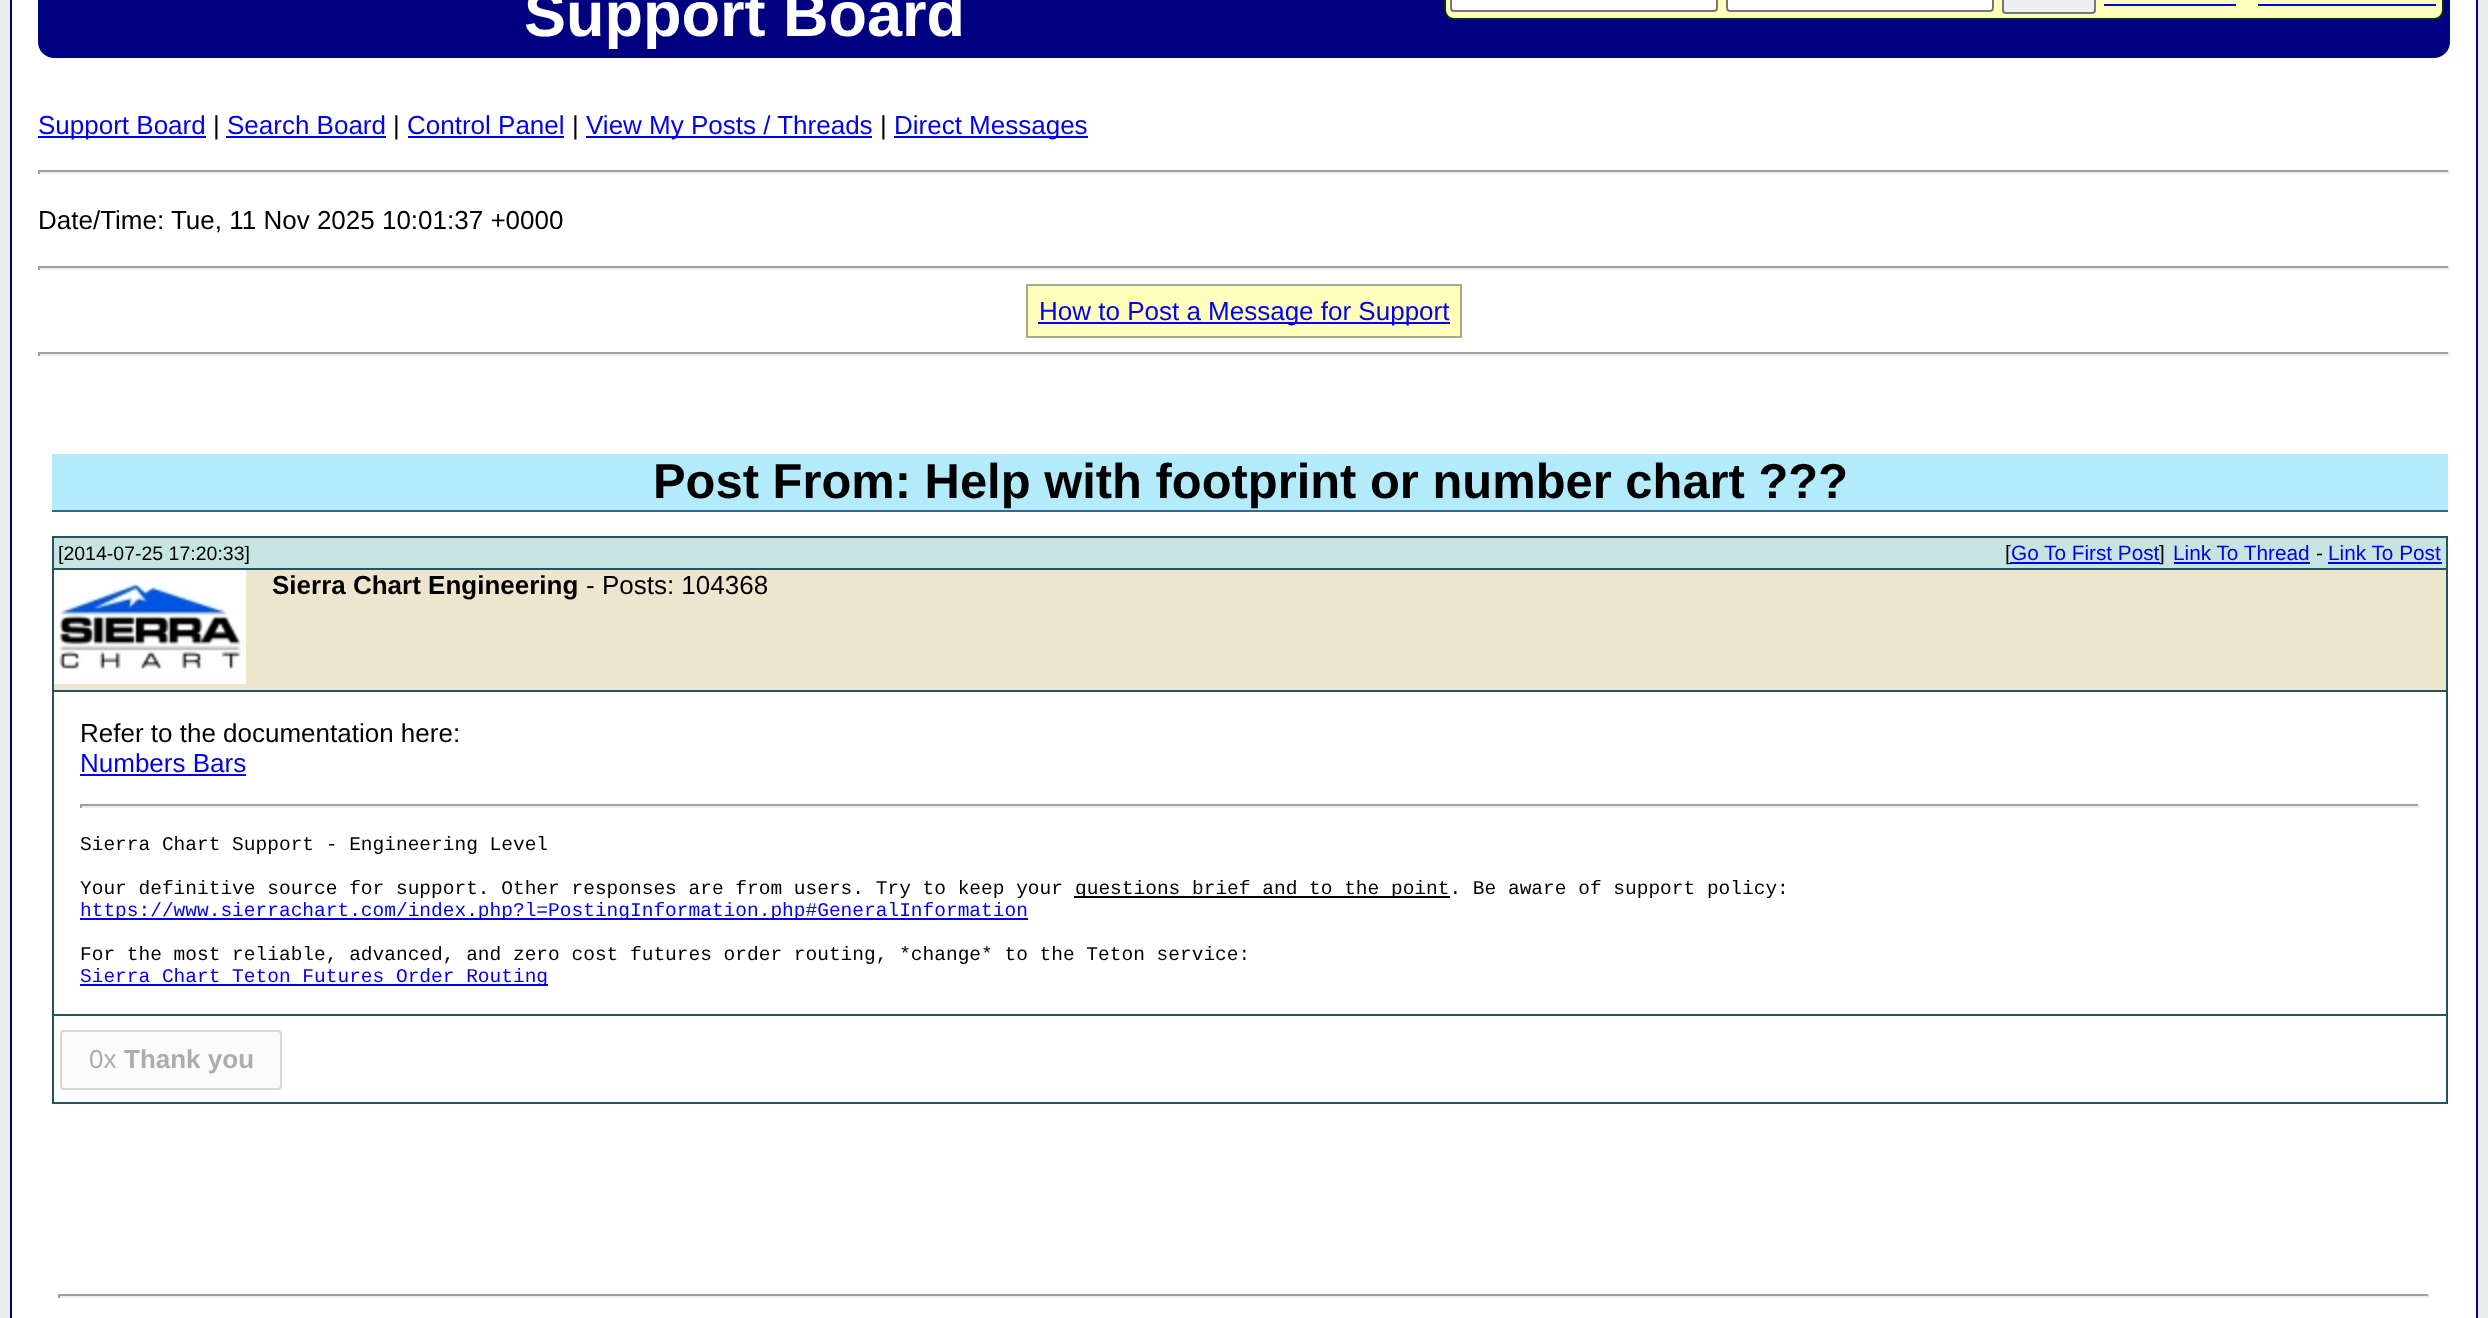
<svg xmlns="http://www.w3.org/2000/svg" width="2488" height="1318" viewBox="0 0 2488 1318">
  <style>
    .t1 { font: bold 63px Liberation Sans; fill: #fff; }
    .t2 { font: 26px Liberation Sans; fill: #00e; }
    .t3 { font: 26px Liberation Sans; fill: #000; }
    .t4 { font: bold 48.9px Liberation Sans; fill: #000; }
    .t5 { font: 19.5px Liberation Sans; fill: #000; }
    .t6 { font: 20.75px Liberation Sans; fill: #000; }
    .t7 { font: 20.75px Liberation Sans; fill: #00e; }
    .t8 { font: bold 26px Liberation Sans; fill: #000; }
    .t9 { font: 19.5px Liberation Mono; fill: #000; }
    .t10 { font: 19.5px Liberation Mono; fill: #00e; }
    .t11 { font: 26px Liberation Sans; fill: #adadad; }
    .t12 { font: bold 26px Liberation Sans; fill: #adadad; }
  </style>
  <rect width="100%" height="100%" fill="#ebedec"/>
  <rect x="12" y="0" width="2464" height="1318" fill="#fff"/>
  <rect x="38" y="-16" width="2412" height="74" rx="16" fill="#000080"/>
  <rect x="1445" y="-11" width="998" height="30" rx="9" fill="#ffb" stroke="#030" stroke-width="2"/>
  <rect x="1451" y="-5" width="266" height="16" rx="3" fill="#fff" stroke="#767676" stroke-width="2"/>
  <rect x="1727" y="-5" width="266" height="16" rx="3" fill="#fff" stroke="#767676" stroke-width="2"/>
  <rect x="2003" y="-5" width="92" height="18" rx="3" fill="#efefef" stroke="#767676" stroke-width="2"/>
  <rect x="2104" y="4" width="132" height="2" fill="#00e"/>
  <rect x="2258" y="4" width="178" height="2" fill="#00e"/>
  <rect x="2476" y="0" width="2" height="1318" fill="#009"/>
  <rect x="10" y="0" width="2" height="1318" fill="#006"/>
  <text x="524" y="36" class="t1">Support Board</text>
  <rect x="38" y="136" width="168" height="2" fill="#00e"/>
  <text x="38" y="134" class="t2">Support Board</text>
  <text x="213" y="134" class="t3">|</text>
  <text x="227" y="134" class="t2">Search Board</text>
  <rect x="226" y="136" width="160" height="2" fill="#00e"/>
  <text x="393" y="134" class="t3">|</text>
  <text x="407" y="134" class="t2">Control Panel</text>
  <rect x="408" y="136" width="156" height="2" fill="#00e"/>
  <text x="572" y="134" class="t3">|</text>
  <rect x="586" y="136" width="286" height="2" fill="#00e"/>
  <text x="586" y="134" class="t2">View My Posts / Threads</text>
  <text x="880" y="134" class="t3">|</text>
  <rect x="894" y="136" width="194" height="2" fill="#00e"/>
  <text x="894" y="134" class="t2">Direct Messages</text>
  <rect x="38" y="170" width="2412" height="2" fill="#9f9f9f"/>
  <rect x="2448" y="170" width="2" height="4" fill="#eee"/>
  <rect x="38" y="172" width="2412" height="2" fill="#eee"/>
  <rect x="38" y="170" width="2" height="4" fill="#9f9f9f"/>
  <text x="38" y="229" class="t3">Date/Time: Tue, 11 Nov 2025 10:01:37 +0000</text>
  <rect x="38" y="266" width="2412" height="2" fill="#9f9f9f"/>
  <rect x="2448" y="266" width="2" height="4" fill="#eee"/>
  <rect x="38" y="268" width="2412" height="2" fill="#eee"/>
  <rect x="38" y="266" width="2" height="4" fill="#9f9f9f"/>
  <rect x="1027" y="285" width="434" height="52" fill="#ffb" stroke="#aa8" stroke-width="2"/>
  <rect x="1038" y="322" width="412" height="2" fill="#00e"/>
  <text x="1039" y="320" class="t2">How to Post a Message for Support</text>
  <rect x="38" y="352" width="2412" height="2" fill="#9f9f9f"/>
  <rect x="2448" y="352" width="2" height="4" fill="#eee"/>
  <rect x="38" y="354" width="2412" height="2" fill="#eee"/>
  <rect x="38" y="352" width="2" height="4" fill="#9f9f9f"/>
  <rect x="52" y="454" width="2396" height="56" fill="#b4ebfb"/>
  <rect x="52" y="510" width="2396" height="2" fill="#369"/>
  <text x="653" y="498" class="t4">Post From: Help with footprint or number chart ???</text>
  <rect x="52" y="536" width="2396" height="2" fill="#25525f"/>
  <rect x="2446" y="536" width="2" height="568" fill="#25525f"/>
  <rect x="52" y="1102" width="2396" height="2" fill="#25525f"/>
  <rect x="52" y="536" width="2" height="568" fill="#25525f"/>
  <rect x="54" y="538" width="2392" height="30" fill="#c8e4e0"/>
  <text x="58" y="560" class="t5">[2014-07-25 17:20:33]</text>
  <text x="2005" y="560" class="t6">[</text>
  <text x="2011" y="560" class="t7">Go To First Post</text>
  <rect x="2010" y="562" width="150" height="2" fill="#00e"/>
  <text x="2159" y="560" class="t6">]</text>
  <text x="2173" y="560" class="t7">Link To Thread</text>
  <rect x="2174" y="562" width="136" height="2" fill="#00e"/>
  <text x="2316" y="560" class="t6">-</text>
  <text x="2328" y="560" class="t7">Link To Post</text>
  <rect x="2328" y="562" width="114" height="2" fill="#00e"/>
  <rect x="54" y="570" width="2392" height="120" fill="#eee5ce"/>
  <rect x="52" y="568" width="2396" height="2" fill="#25525f"/>
  <image x="54" y="570" width="192" height="114" href="images/1.png"/>
  <text x="272" y="594" class="t8">Sierra Chart Engineering</text>
  <text x="586" y="594" class="t3">- Posts: 104368</text>
  <rect x="52" y="690" width="2396" height="2" fill="#25525f"/>
  <rect x="52" y="1014" width="2396" height="2" fill="#25525f"/>
  <text x="80" y="742" class="t3">Refer to the documentation here:</text>
  <text x="80" y="772" class="t2">Numbers Bars</text>
  <rect x="80" y="774" width="166" height="2" fill="#00e"/>
  <rect x="80" y="804" width="2340" height="2" fill="#9f9f9f"/>
  <rect x="2418" y="804" width="2" height="4" fill="#eee"/>
  <rect x="80" y="806" width="2340" height="2" fill="#eee"/>
  <rect x="80" y="804" width="2" height="4" fill="#9f9f9f"/>
  <text x="80" y="850" class="t9">Sierra Chart Support - Engineering Level</text>
  <text x="80" y="894" class="t9">Your definitive source for support. Other responses are from users. Try to keep your</text>
  <rect x="1074" y="896" width="376" height="2" fill="#000"/>
  <text x="1075" y="894" class="t9">questions brief and to the point. Be aware of support policy:</text>
  <rect x="80" y="918" width="948" height="2" fill="#00e"/>
  <text x="80" y="916" class="t10">https://www.sierrachart.com/index.php?l=PostingInformation.php#GeneralInformation</text>
  <text x="80" y="960" class="t9">For the most reliable, advanced, and zero cost futures order routing, *change* to the Teton service:</text>
  <rect x="80" y="984" width="468" height="2" fill="#00e"/>
  <text x="80" y="982" class="t10">Sierra Chart Teton Futures Order Routing</text>
  <rect x="61" y="1031" width="220" height="58" rx="3" fill="#fbfbfb" stroke="#d6d6d6" stroke-width="2"/>
  <text x="89" y="1068" class="t11">0x</text>
  <text x="124" y="1068" class="t12">Thank you</text>
  <rect x="58" y="1294" width="2372" height="2" fill="#9f9f9f"/>
  <rect x="2428" y="1294" width="2" height="4" fill="#eee"/>
  <rect x="58" y="1296" width="2372" height="2" fill="#eee"/>
  <rect x="58" y="1294" width="2" height="4" fill="#9f9f9f"/>
</svg>
